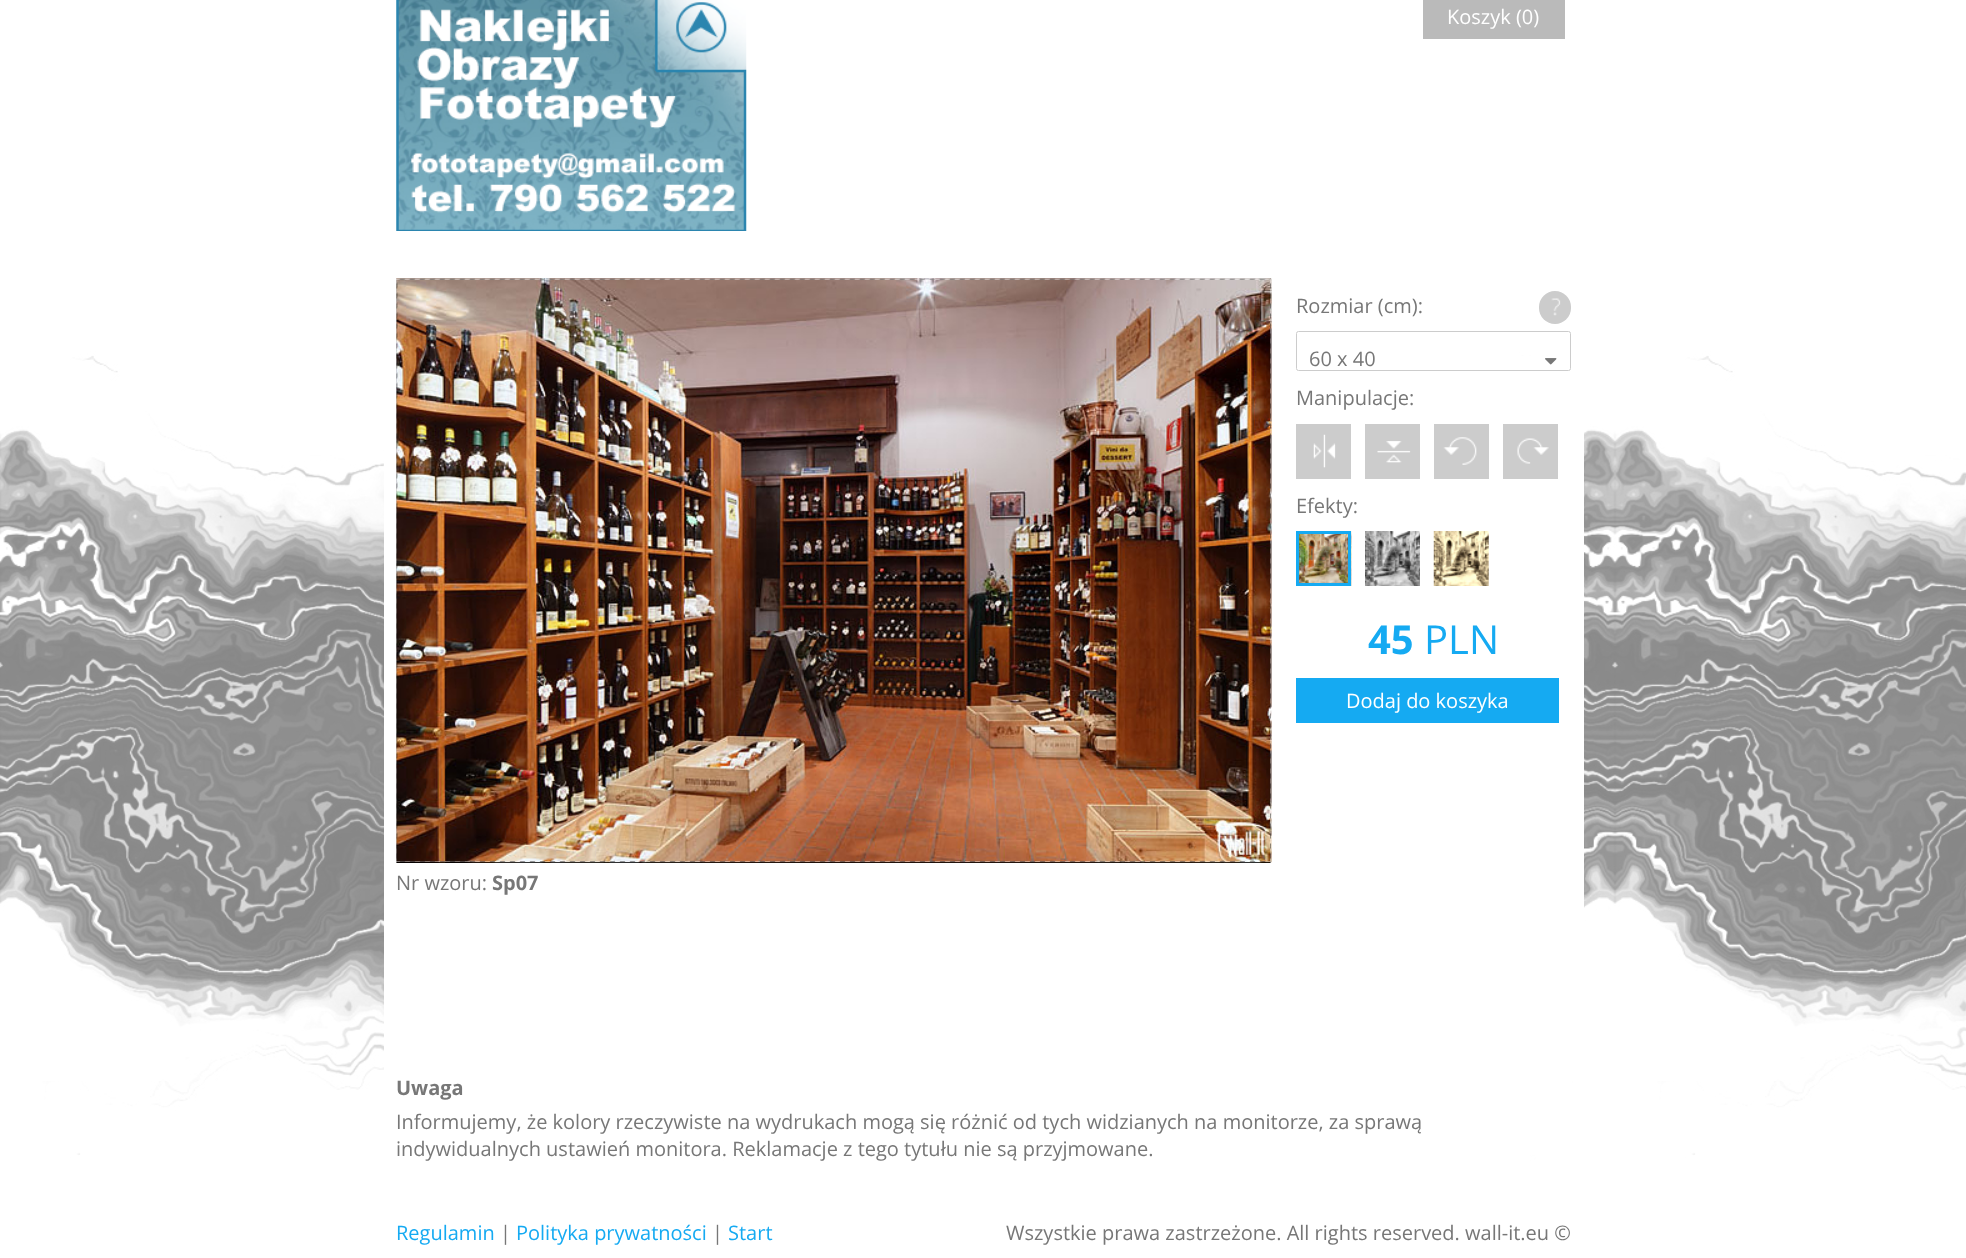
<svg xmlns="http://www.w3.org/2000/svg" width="1966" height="1258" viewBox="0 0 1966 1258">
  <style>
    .t1 { font: 20px Open Sans; fill: #fff; }
    .t2 { font: 20px Open Sans; fill: #777; }
    .t3 { font: bold 40px Open Sans; fill: #15aaf2; }
    .t4 { font: 40px Open Sans; fill: #15aaf2; }
    .t5 { font: bold 20px Open Sans; fill: #777; }
    .t6 { font: 20px Open Sans; fill: #15aaf2; }
  </style>
  <rect width="100%" height="100%" fill="#fff"/>
  <image x="0" y="0" width="1966" height="1258" href="images/1.png"/>
  <image x="396" y="0" width="351" height="231" href="images/2.png"/>
  <rect x="1423" y="0" width="142" height="39" fill="#bababa"/>
  <text x="1447" y="24" class="t1">Koszyk (0)</text>
  <rect x="384" y="356" width="1200" height="699" fill="#fff"/>
  <text x="1296" y="313" class="t2">Rozmiar (cm):</text>
  <rect x="1539" y="291" width="32" height="33" rx="16" fill="#ccc"/>
  <image x="1551" y="298" width="10" height="18" href="images/3.png"/>
  <rect x="1296.5" y="331.5" width="274" height="39" rx="2" fill="none" stroke="#ccc"/>
  <text x="1309" y="366" class="t2">60 x 40</text>
  <image x="1545" y="358" width="12" height="7" href="images/4.png"/>
  <text x="1296" y="405" class="t2">Manipulacje:</text>
  <rect x="1296" y="424" width="55" height="55" fill="#ccc"/>
  <image x="1313" y="434" width="23" height="34" href="images/5.png"/>
  <rect x="1365" y="424" width="55" height="55" fill="#ccc"/>
  <image x="1377" y="441" width="34" height="22" href="images/6.png"/>
  <rect x="1434" y="424" width="55" height="55" fill="#ccc"/>
  <image x="1443" y="437" width="34" height="28" href="images/7.png"/>
  <rect x="1503" y="424" width="55" height="55" fill="#ccc"/>
  <image x="1517" y="438" width="32" height="26" href="images/8.png"/>
  <text x="1296" y="513" class="t2">Efekty:</text>
  <image x="1299" y="531" width="53" height="55" href="images/9.png"/>
  <rect x="1297.5" y="532.5" width="52" height="52" fill="none" stroke="#15aaf2" stroke-width="3"/>
  <image x="1365" y="531" width="55" height="55" href="images/10.png"/>
  <image x="1433" y="531" width="56" height="55" href="images/11.png"/>
  <text x="1368" y="654" class="t3">45</text>
  <text x="1424" y="654" class="t4">PLN</text>
  <rect x="1296" y="678" width="263" height="45" fill="#15aaf2"/>
  <text x="1346" y="708" class="t1">Dodaj do koszyka</text>
  <image x="396" y="278" width="876" height="585" href="images/12.png"/>
  <rect x="396" y="279" width="875" height="584" fill="#000"/>
  <image x="396" y="278" width="876" height="585" href="images/13.png"/>
  <image x="396" y="278" width="876" height="585" href="images/14.png"/>
  <rect x="396" y="279" width="875" height="1" fill="#ffffff66"/>
  <image x="398" y="278" width="873" height="2" href="images/15.png"/>
  <rect x="396" y="861" width="875" height="1" fill="#ffffff66"/>
  <rect x="396" y="279" width="1" height="584" fill="#ffffff66"/>
  <image x="396" y="278" width="2" height="581" href="images/16.png"/>
  <image x="399" y="861" width="873" height="1" href="images/18.png"/>
  <rect x="1270" y="279" width="1" height="584" fill="#ffffff66"/>
  <image x="1270" y="278" width="2" height="581" href="images/17.png"/>
  <text x="396" y="890" class="t2">Nr wzoru:</text>
  <text x="492" y="890" class="t5">Sp07</text>
  <rect x="384" y="1055" width="1188" height="100" fill="#fff"/>
  <text x="396" y="1095" class="t5">Uwaga</text>
  <text x="396" y="1129" class="t2">Informujemy, że kolory rzeczywiste na wydrukach mogą się różnić od tych widzianych na monitorze, za sprawą</text>
  <text x="396" y="1156" class="t2">indywidualnych ustawień monitora. Reklamacje z tego tytułu nie są przyjmowane.</text>
  <text x="396" y="1240" class="t6">Regulamin</text>
  <text x="500" y="1240" class="t2">|</text>
  <text x="516" y="1240" class="t6">Polityka prywatności</text>
  <text x="712" y="1240" class="t2">|</text>
  <text x="728" y="1240" class="t6">Start</text>
  <text x="1006" y="1240" class="t2">Wszystkie prawa zastrzeżone. All rights reserved. wall-it.eu ©</text>
</svg>
